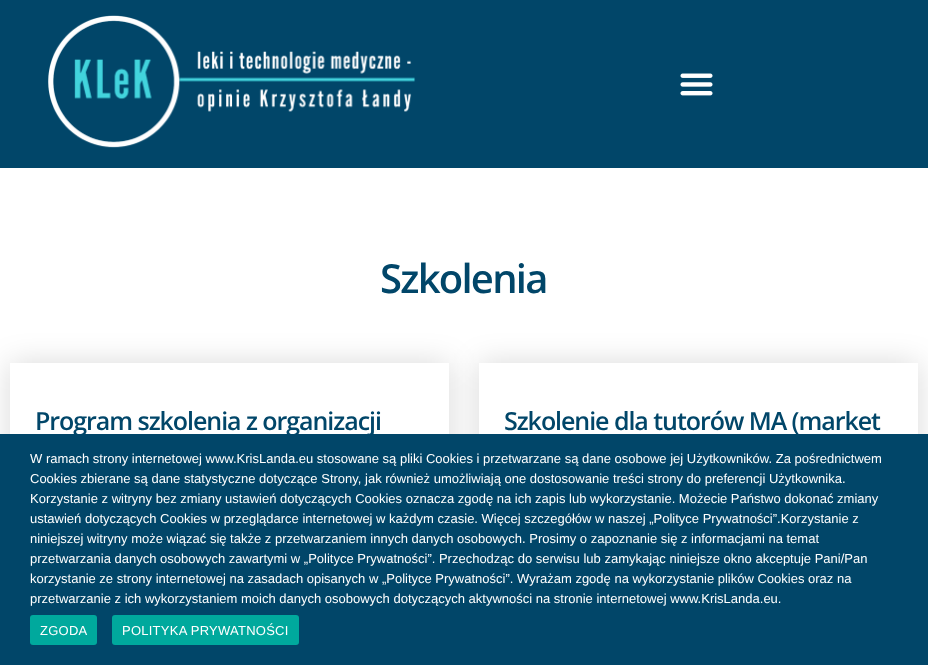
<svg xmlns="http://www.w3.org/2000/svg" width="928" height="665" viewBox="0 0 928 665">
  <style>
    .t1 { font: 600 40px Open Sans; letter-spacing: -1.75px; fill: #014669; }
    .t2 { font: 600 25px Open Sans; letter-spacing: -1.05px; fill: #014669; }
    .t3 { font: 13px Liberation Sans; fill: #fff; }
    .t4 { font: 13px Liberation Sans; letter-spacing: 0.25px; fill: #fff; }
  </style>
  <defs>
    <clipPath id="clip1"><path d="M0 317H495V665H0ZM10 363H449V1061H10Z" clip-rule="evenodd"/></clipPath>
    <clipPath id="clip2"><path d="M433 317H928V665H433ZM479 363H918V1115H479Z" clip-rule="evenodd"/></clipPath>
  </defs>
  <rect width="100%" height="100%" fill="#fff"/>
  <rect x="0" y="0" width="928" height="168" fill="#014669"/>
  <image x="48" y="15" width="368" height="133" href="images/1.png"/>
  <image x="680" y="73" width="33" height="23" href="images/2.png"/>
  <text x="380" y="293" class="t1">Szkolenia</text>
  <g clip-path="url(#clip1)">
    <rect x="10" y="363" width="439" height="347" fill="#00000026" filter="blur(15px)"/>
  </g>
  <text x="35" y="430" class="t2">Program szkolenia z organizacji</text>
  <g clip-path="url(#clip2)">
    <rect x="479" y="363" width="439" height="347" fill="#00000026" filter="blur(15px)"/>
  </g>
  <text x="504" y="430" class="t2">Szkolenie dla tutorów MA (market</text>
  <rect x="0" y="434" width="928" height="231" fill="#014669"/>
  <text x="30" y="463" class="t3">W ramach strony internetowej www.KrisLanda.eu stosowane są pliki Cookies i przetwarzane są dane osobowe jej Użytkowników. Za pośrednictwem</text>
  <text x="30" y="483" class="t3">Cookies zbierane są dane statystyczne dotyczące Strony, jak również umożliwiają one dostosowanie treści strony do preferencji Użytkownika.</text>
  <text x="30" y="503" class="t3">Korzystanie z witryny bez zmiany ustawień dotyczących Cookies oznacza zgodę na ich zapis lub wykorzystanie. Możecie Państwo dokonać zmiany</text>
  <text x="30" y="523" class="t3">ustawień dotyczących Cookies w przeglądarce internetowej w każdym czasie. Więcej szczegółów w naszej „Polityce Prywatności”.Korzystanie z</text>
  <text x="30" y="543" class="t3">niniejszej witryny może wiązać się także z przetwarzaniem innych danych osobowych. Prosimy o zapoznanie się z informacjami na temat</text>
  <text x="30" y="563" class="t3">przetwarzania danych osobowych zawartymi w „Polityce Prywatności”. Przechodząc do serwisu lub zamykając niniejsze okno akceptuje Pani/Pan</text>
  <text x="30" y="583" class="t3">korzystanie ze strony internetowej na zasadach opisanych w „Polityce Prywatności”. Wyrażam zgodę na wykorzystanie plików Cookies oraz na</text>
  <text x="30" y="603" class="t3">przetwarzanie z ich wykorzystaniem moich danych osobowych dotyczących aktywności na stronie internetowej www.KrisLanda.eu.</text>
  <rect x="30" y="615" width="67" height="30" rx="3" fill="#00a99d"/>
  <text x="40" y="635" class="t4">ZGODA</text>
  <rect x="112" y="615" width="187" height="30" rx="3" fill="#00a99d"/>
  <text x="122" y="635" class="t4">POLITYKA PRYWATNOŚCI</text>
</svg>
